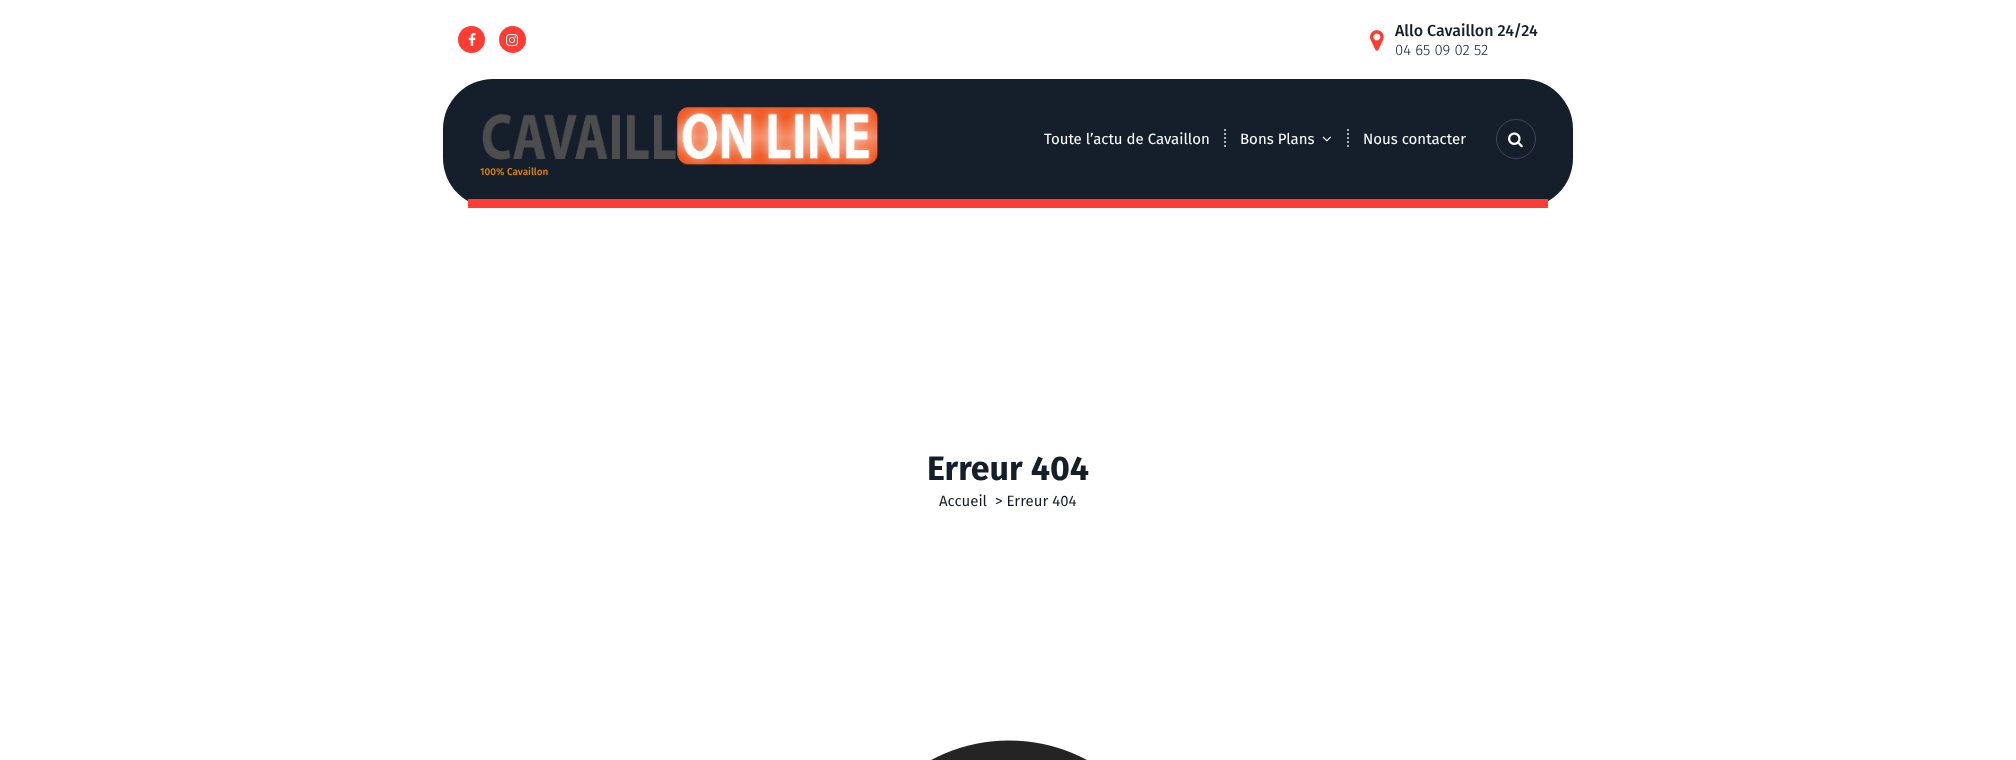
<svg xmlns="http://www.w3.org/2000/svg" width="2016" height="760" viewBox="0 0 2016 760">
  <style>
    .t1 { font: 500 16px Fira Sans; fill: #141f2b; }
    .t2 { font: 300 15px Fira Sans; fill: #141f2b; }
    .t3 { font: 15px Fira Sans; fill: #fff; }
    .t4 { font: 500 10px Fira Sans; fill: #dd8500; }
    .t5 { font: bold 34px Fira Sans; fill: #141f2b; }
    .t6 { font: 15px Fira Sans; fill: #141f2b; }
  </style>
  <rect width="100%" height="100%" fill="#fff"/>
  <circle cx="471.5" cy="39.5" r="13.5" fill="#ff3b33"/>
  <image x="468" y="33" width="8" height="13" href="images/1.png"/>
  <circle cx="512.5" cy="39.5" r="13.5" fill="#ff3b33"/>
  <image x="506" y="34" width="12" height="12" href="images/2.png"/>
  <image x="1370" y="30" width="14" height="21" href="images/3.png"/>
  <text x="1395" y="36" class="t1">Allo Cavaillon 24/24</text>
  <text x="1395" y="55" class="t2">04 65 09 02 52</text>
  <rect x="443" y="79" width="1130" height="129" rx="50" fill="#141f2b"/>
  <rect x="468" y="199" width="1080" height="9" fill="#ff3b33"/>
  <text x="1044" y="144" class="t3">Toute l’actu de Cavaillon</text>
  <path d="M1225 129V149" fill="none" stroke="#adb1b5" stroke-width="2" stroke-dasharray="2 2"/>
  <text x="1240" y="144" class="t3">Bons Plans</text>
  <image x="1322" y="136" width="9" height="6" href="images/4.png"/>
  <path d="M1348 129V149" fill="none" stroke="#adb1b5" stroke-width="2" stroke-dasharray="2 2"/>
  <text x="1363" y="144" class="t3">Nous contacter</text>
  <circle cx="1516" cy="139" r="19.5" fill="none" stroke="#43435c"/>
  <image x="1508" y="132" width="15" height="16" href="images/5.png"/>
  <image x="482" y="107" width="397" height="59" href="images/6.png"/>
  <text x="480" y="175" class="t4">100% Cavaillon</text>
  <text x="927" y="480" class="t5">Erreur 404</text>
  <text x="939" y="506" class="t6">Accueil</text>
  <text x="995" y="506" class="t6">&gt; Erreur 404</text>
  <image x="931" y="740" width="156" height="20" href="images/7.png"/>
</svg>
